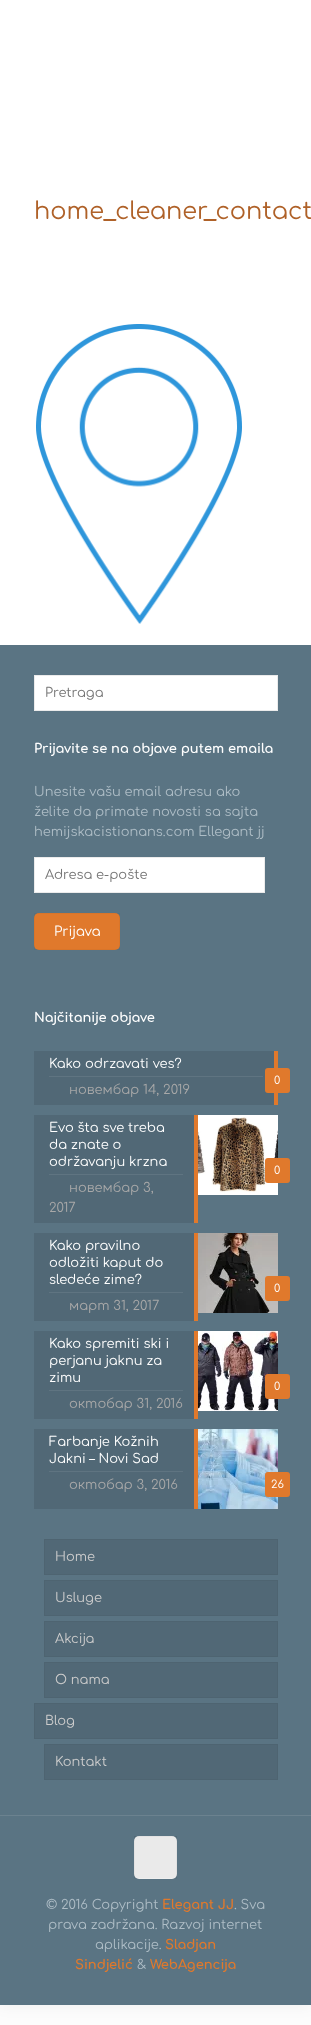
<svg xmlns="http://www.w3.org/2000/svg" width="311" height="2025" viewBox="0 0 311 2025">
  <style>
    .t1 { font: 24px Comfortaa; fill: #af6128; }
    .t2 { font: 13px Comfortaa; fill: #757575; }
    .t3 { font: bold 13px Comfortaa; fill: #fff; }
    .t4 { font: 13px Comfortaa; fill: #aebdc6; }
    .t5 { font: 13.5px Comfortaa; fill: #fff; }
    .t6 { font: 13px Comfortaa; fill: #fff; }
    .t7 { font: 13px Comfortaa; fill: #a8a8a8; }
    .t8 { font: 11px Comfortaa; fill: #fff; }
    .t9 { font: 13px Comfortaa; fill: #ccc; }
    .t10 { font: bold 13px Comfortaa; fill: #e0792c; }
  </style>
  <rect width="100%" height="100%" fill="#fcfcfc"/>
  <rect x="0" y="0" width="311" height="2005" fill="#0000000f" filter="blur(7.5px)"/>
  <rect x="0" y="0" width="311" height="645" fill="#fff"/>
  <text x="34" y="219" class="t1">home_cleaner_contact</text>
  <image x="36" y="324" width="206" height="300" href="images/1.png"/>
  <rect x="0" y="645" width="311" height="1360" fill="#5a7483"/>
  <rect x="34.5" y="675.5" width="243" height="35" fill="#fff" stroke="#ebebeb"/>
  <text x="45" y="697" class="t2">Pretraga</text>
  <text x="34" y="753" class="t3">Prijavite se na objave putem emaila</text>
  <text x="34" y="796" class="t4">Unesite vašu email adresu ako</text>
  <text x="34" y="816" class="t4">želite da primate novosti sa sajta</text>
  <text x="34" y="836" class="t4">hemijskacistionans.com Ellegant jj</text>
  <rect x="34.5" y="857.5" width="230" height="35" fill="#fff" stroke="#ebebeb"/>
  <text x="45" y="879" class="t2">Adresa e-pošte</text>
  <rect x="34" y="913" width="86" height="37" rx="5" fill="#e0792c"/>
  <rect x="34.5" y="913.5" width="85" height="36" fill="none" stroke="#00000008"/>
  <text x="54" y="936" class="t5">Prijava</text>
  <text x="34" y="1022" class="t3">Najčitanije objave</text>
  <rect x="34" y="1051" width="240" height="54" fill="#516876"/>
  <rect x="49" y="1076" width="214" height="1" fill="#5f7481"/>
  <text x="49" y="1068" class="t6">Kako odrzavati ves?</text>
  <rect x="274" y="1051" width="4" height="54" fill="#e0792c"/>
  <text x="69" y="1094" class="t7">новембар 14, 2019</text>
  <rect x="265" y="1068" width="25" height="25" rx="3" fill="#e0792c"/>
  <text x="274" y="1084" class="t8">0</text>
  <rect x="34" y="1115" width="160" height="108" fill="#516876"/>
  <rect x="49" y="1174" width="134" height="1" fill="#5f7481"/>
  <text x="49" y="1132" class="t6">Evo šta sve treba</text>
  <text x="49" y="1149" class="t6">da znate o</text>
  <text x="49" y="1166" class="t6">održavanju krzna</text>
  <rect x="194" y="1115" width="4" height="108" fill="#e0792c"/>
  <text x="69" y="1192" class="t7">новембар 3,</text>
  <text x="49" y="1212" class="t7">2017</text>
  <image x="198" y="1115" width="80" height="80" href="images/2.png"/>
  <rect x="265" y="1158" width="25" height="25" rx="3" fill="#e0792c"/>
  <text x="274" y="1174" class="t8">0</text>
  <rect x="34" y="1233" width="160" height="88" fill="#516876"/>
  <rect x="49" y="1292" width="134" height="1" fill="#5f7481"/>
  <text x="49" y="1250" class="t6">Kako pravilno</text>
  <text x="49" y="1267" class="t6">odložiti kaput do</text>
  <text x="49" y="1284" class="t6">sledeće zime?</text>
  <rect x="194" y="1233" width="4" height="88" fill="#e0792c"/>
  <text x="69" y="1310" class="t7">март 31, 2017</text>
  <image x="198" y="1233" width="80" height="80" href="images/3.png"/>
  <rect x="265" y="1276" width="25" height="25" rx="3" fill="#e0792c"/>
  <text x="274" y="1292" class="t8">0</text>
  <rect x="34" y="1331" width="160" height="88" fill="#516876"/>
  <rect x="49" y="1390" width="134" height="1" fill="#5f7481"/>
  <text x="49" y="1348" class="t6">Kako spremiti ski i</text>
  <text x="49" y="1365" class="t6">perjanu jaknu za</text>
  <text x="49" y="1382" class="t6">zimu</text>
  <rect x="194" y="1331" width="4" height="88" fill="#e0792c"/>
  <text x="69" y="1408" class="t7">октобар 31, 2016</text>
  <image x="198" y="1331" width="80" height="80" href="images/4.png"/>
  <rect x="265" y="1374" width="25" height="25" rx="3" fill="#e0792c"/>
  <text x="274" y="1390" class="t8">0</text>
  <rect x="34" y="1429" width="160" height="80" fill="#516876"/>
  <rect x="49" y="1471" width="134" height="1" fill="#5f7481"/>
  <text x="49" y="1446" class="t6">Farbanje Kožnih</text>
  <text x="49" y="1463" class="t6">Jakni – Novi Sad</text>
  <rect x="194" y="1429" width="4" height="80" fill="#e0792c"/>
  <text x="69" y="1489" class="t7">октобар 3, 2016</text>
  <image x="198" y="1429" width="80" height="80" href="images/5.png"/>
  <rect x="265" y="1472" width="25" height="25" rx="3" fill="#e0792c"/>
  <text x="271" y="1488" class="t8">26</text>
  <rect x="44.5" y="1539.5" width="233" height="35" fill="#516876" stroke="#4e6471"/>
  <text x="55" y="1561" class="t9">Home</text>
  <rect x="44.5" y="1580.5" width="233" height="35" fill="#516876" stroke="#4e6471"/>
  <text x="55" y="1602" class="t9">Usluge</text>
  <rect x="44.5" y="1621.5" width="233" height="35" fill="#516876" stroke="#4e6471"/>
  <text x="55" y="1643" class="t9">Akcija</text>
  <rect x="44.5" y="1662.5" width="233" height="35" fill="#516876" stroke="#4e6471"/>
  <text x="55" y="1684" class="t9">O nama</text>
  <rect x="34.5" y="1703.5" width="243" height="35" fill="#516876" stroke="#4e6471"/>
  <text x="45" y="1725" class="t9">Blog</text>
  <rect x="44.5" y="1744.5" width="233" height="35" fill="#516876" stroke="#4e6471"/>
  <text x="55" y="1766" class="t9">Kontakt</text>
  <rect x="0" y="1815" width="311" height="1" fill="#6b828f"/>
  <rect x="134" y="1836" width="43" height="43" rx="5" fill="#f7f7f7"/>
  <rect x="134.5" y="1836.5" width="42" height="42" fill="none" stroke="#00000008"/>
  <rect x="134" y="1836" width="43" height="42" fill="#0000000d"/>
  <text x="46" y="1909" class="t4">© 2016 Copyright</text>
  <text x="162" y="1909" class="t10">Elegant JJ</text>
  <text x="234" y="1909" class="t4">. Sva</text>
  <text x="48" y="1929" class="t4">prava zadržana. Razvoj internet</text>
  <text x="95" y="1949" class="t4">aplikacije.</text>
  <text x="165" y="1949" class="t10">Sladjan</text>
  <text x="75" y="1969" class="t10">Sindjelić</text>
  <text x="137" y="1969" class="t4">&amp;</text>
  <text x="150" y="1969" class="t10">WebAgencija</text>
</svg>
